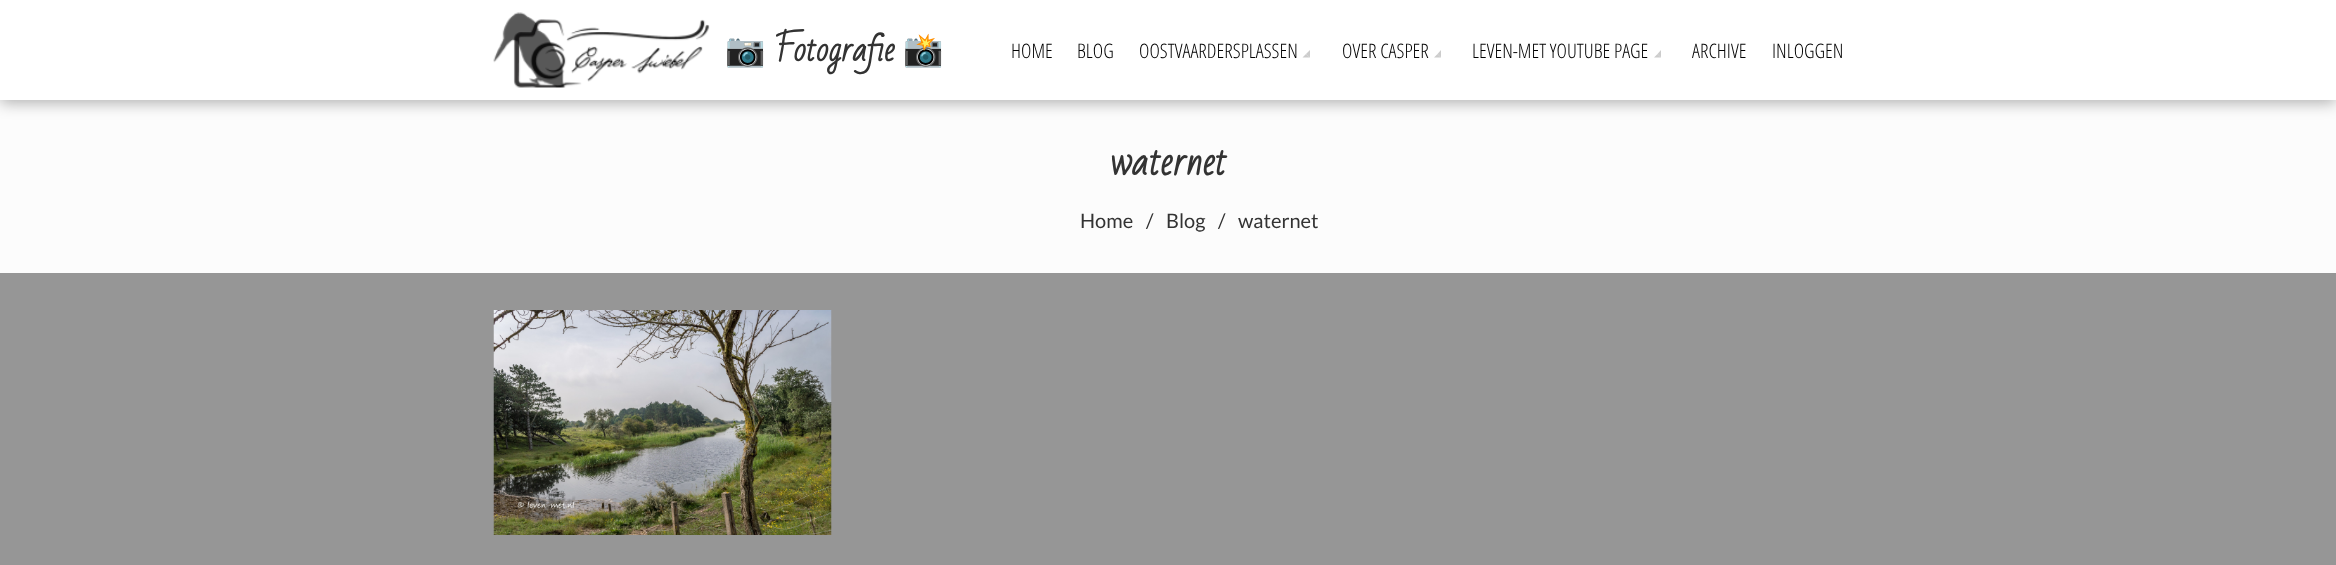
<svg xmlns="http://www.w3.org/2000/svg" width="2336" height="565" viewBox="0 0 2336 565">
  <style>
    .t1 { font: bold 32.5px Noto Color Emoji; fill: #333; }
    .t2 { font: bold 32.5px Bad Script; fill: #333; }
    .t3 { font: 300 20px Open Sans Condensed; fill: #000; }
    .t4 { font: bold 37.5px Bad Script; fill: #333; }
    .t5 { font: 20px Lato; fill: #333; }
  </style>
  <rect width="100%" height="100%" fill="#969696"/>
  <rect x="0" y="100" width="2336" height="173" fill="#fcfcfc"/>
  <rect x="0" y="3" width="2336" height="100" fill="#0000004d" filter="blur(7.5px)"/>
  <rect x="0" y="0" width="2336" height="100" fill="#fff"/>
  <image x="493" y="12" width="217" height="76" href="images/1.png"/>
  <text x="725" y="61" class="t1">📷</text>
  <text x="774" y="61" class="t2">Fotografie</text>
  <text x="903" y="61" class="t1">📸</text>
  <text x="1011" y="58" class="t3">HOME</text>
  <text x="1077" y="58" class="t3">BLOG</text>
  <text x="1139" y="58" class="t3">OOSTVAARDERSPLASSEN</text>
  <path d="M1310 50V57.5L1306 54Z" fill="#ccc"/>
  <path d="M1310 57.5H1302.5L1306 54Z" fill="#ccc"/>
  <text x="1342" y="58" class="t3">OVER CASPER</text>
  <path d="M1441 50V57.5L1437.5 54Z" fill="#ccc"/>
  <path d="M1441 57.5H1434L1437.5 54Z" fill="#ccc"/>
  <text x="1472" y="58" class="t3">LEVEN-MET YOUTUBE PAGE</text>
  <path d="M1661 50V57.5L1657.5 54Z" fill="#ccc"/>
  <path d="M1661 57.5H1654L1657.5 54Z" fill="#ccc"/>
  <text x="1692" y="58" class="t3">ARCHIVE</text>
  <text x="1772" y="58" class="t3">INLOGGEN</text>
  <text x="1110" y="175" class="t4">waternet</text>
  <text x="1080" y="228" class="t5">Home</text>
  <text x="1146" y="228" class="t5">/</text>
  <text x="1166" y="228" class="t5">Blog</text>
  <text x="1218" y="228" class="t5">/</text>
  <text x="1238" y="228" class="t5">waternet</text>
  <image x="493" y="310" width="339" height="225" href="images/2.png"/>
</svg>
